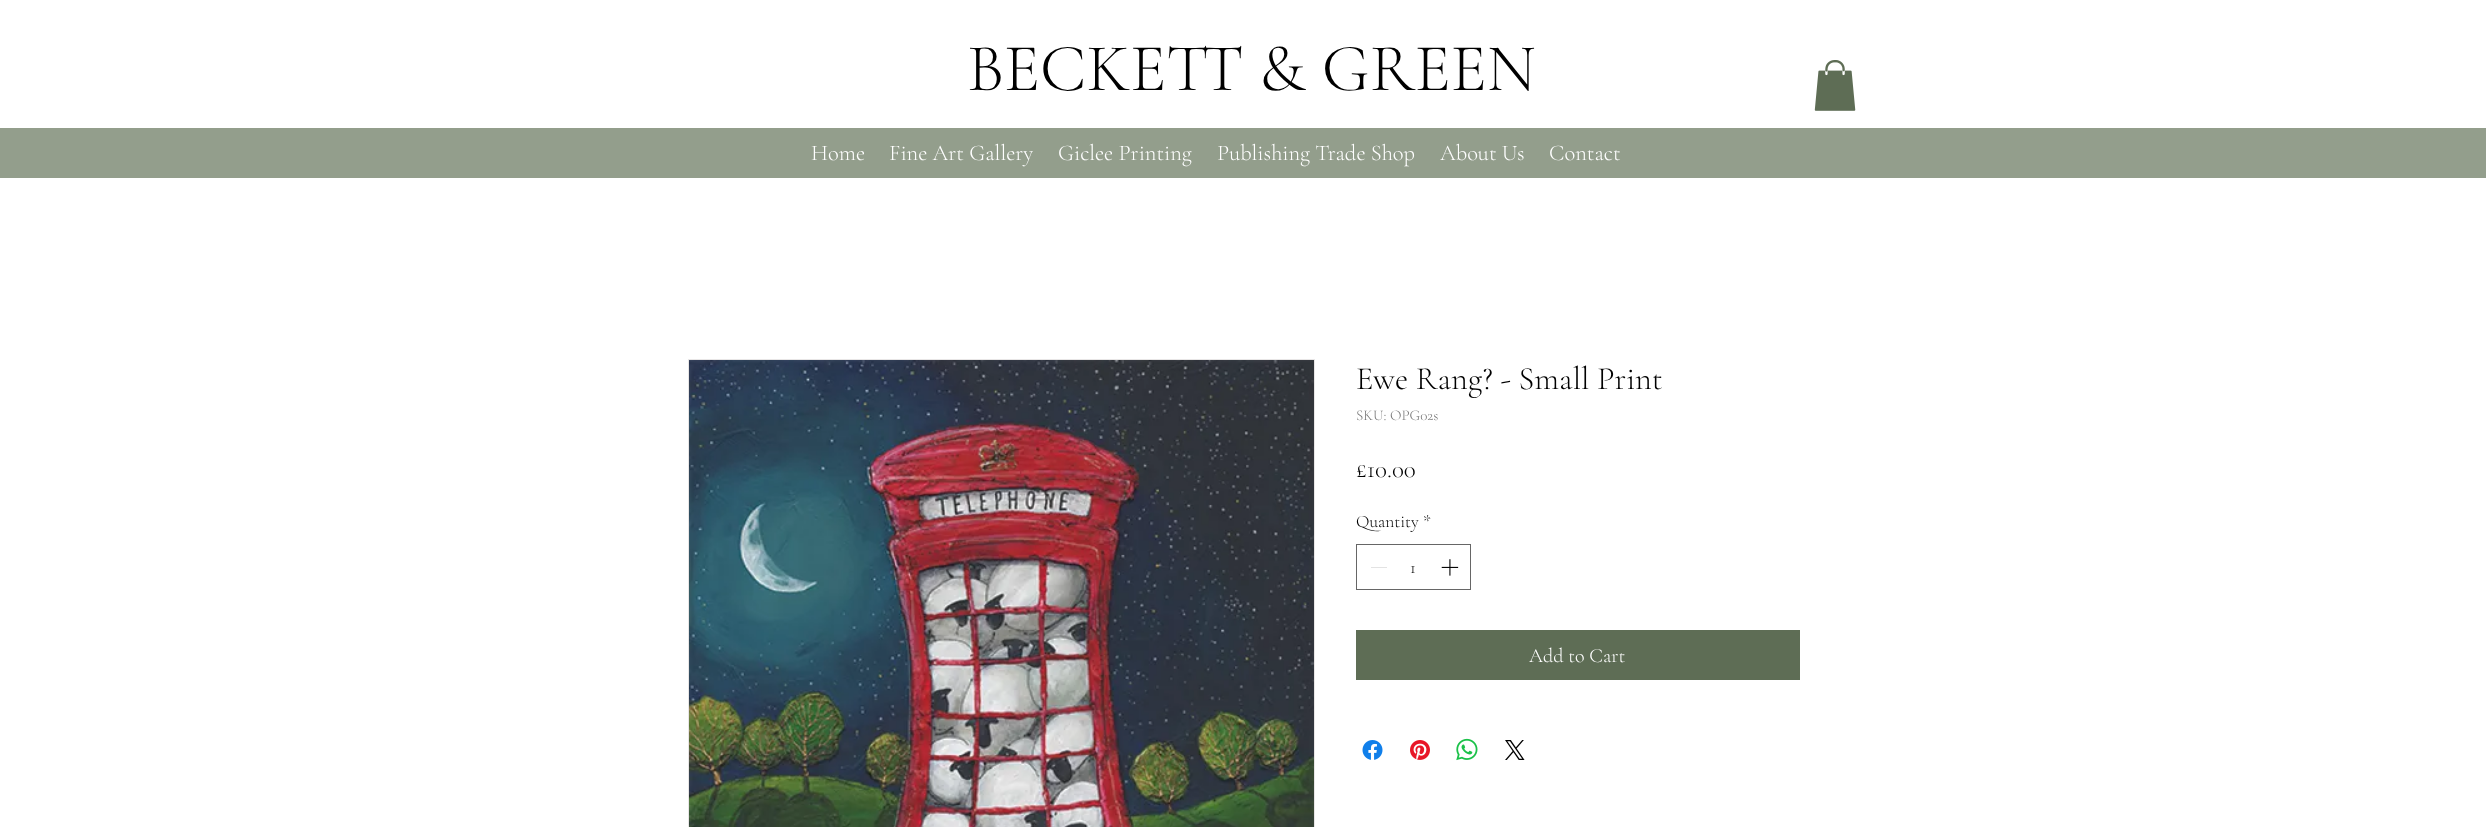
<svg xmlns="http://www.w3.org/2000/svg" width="2486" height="827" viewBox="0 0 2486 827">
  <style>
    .t1 { font: 300 67.5px Cormorant Garamond; fill: #000; }
    .t2 { font: 300 22.5px Cormorant Garamond; fill: #fff; }
    .t3 { font: 300 32.5px Cormorant Garamond; fill: #000; }
    .t4 { font: 300 15px Cormorant Garamond; fill: #757575; }
    .t5 { font: 300 25px Cormorant Garamond; fill: #000; }
    .t6 { font: 300 17.5px Cormorant Garamond; fill: #000; }
    .t7 { font: 300 20px Cormorant Garamond; fill: #fff; }
  </style>
  <rect width="100%" height="100%" fill="#fff"/>
  <text x="967" y="90" class="t1">BECKETT &amp; GREEN</text>
  <image x="1814" y="60" width="42" height="51" href="images/1.png"/>
  <rect x="0" y="128" width="2486" height="50" fill="#939e8c"/>
  <text x="811" y="160" class="t2">Home</text>
  <text x="889" y="160" class="t2">Fine Art Gallery</text>
  <text x="1058" y="160" class="t2">Giclee Printing</text>
  <text x="1217" y="160" class="t2">Publishing Trade Shop</text>
  <text x="1440" y="160" class="t2">About Us</text>
  <text x="1549" y="160" class="t2">Contact</text>
  <rect x="688.5" y="359.5" width="626" height="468" fill="none" stroke="#e8e6e6"/>
  <image x="689" y="360" width="625" height="467" href="images/2.png"/>
  <text x="1356" y="389" class="t3">Ewe Rang? - Small Print</text>
  <text x="1356" y="420" class="t4">SKU: OPG02s</text>
  <text x="1356" y="477" class="t5">£10.00</text>
  <text x="1356" y="527" class="t6">Quantity</text>
  <text x="1423" y="527" class="t6">*</text>
  <rect x="1356.5" y="544.5" width="114" height="45" fill="none" stroke="#666"/>
  <rect x="1371" y="567" width="16" height="1" fill="#e3e3e3"/>
  <text x="1410" y="573" class="t6">1</text>
  <image x="1441" y="559" width="18" height="17" href="images/3.png"/>
  <rect x="1356" y="630" width="444" height="50" fill="#5e6d55"/>
  <text x="1529" y="662" class="t7">Add to Cart</text>
  <image x="1362" y="740" width="21" height="20" href="images/4.png"/>
  <image x="1410" y="740" width="20" height="20" href="images/5.png"/>
  <image x="1456" y="738" width="22" height="23" href="images/6.png"/>
  <image x="1505" y="740" width="20" height="20" href="images/7.png"/>
</svg>
